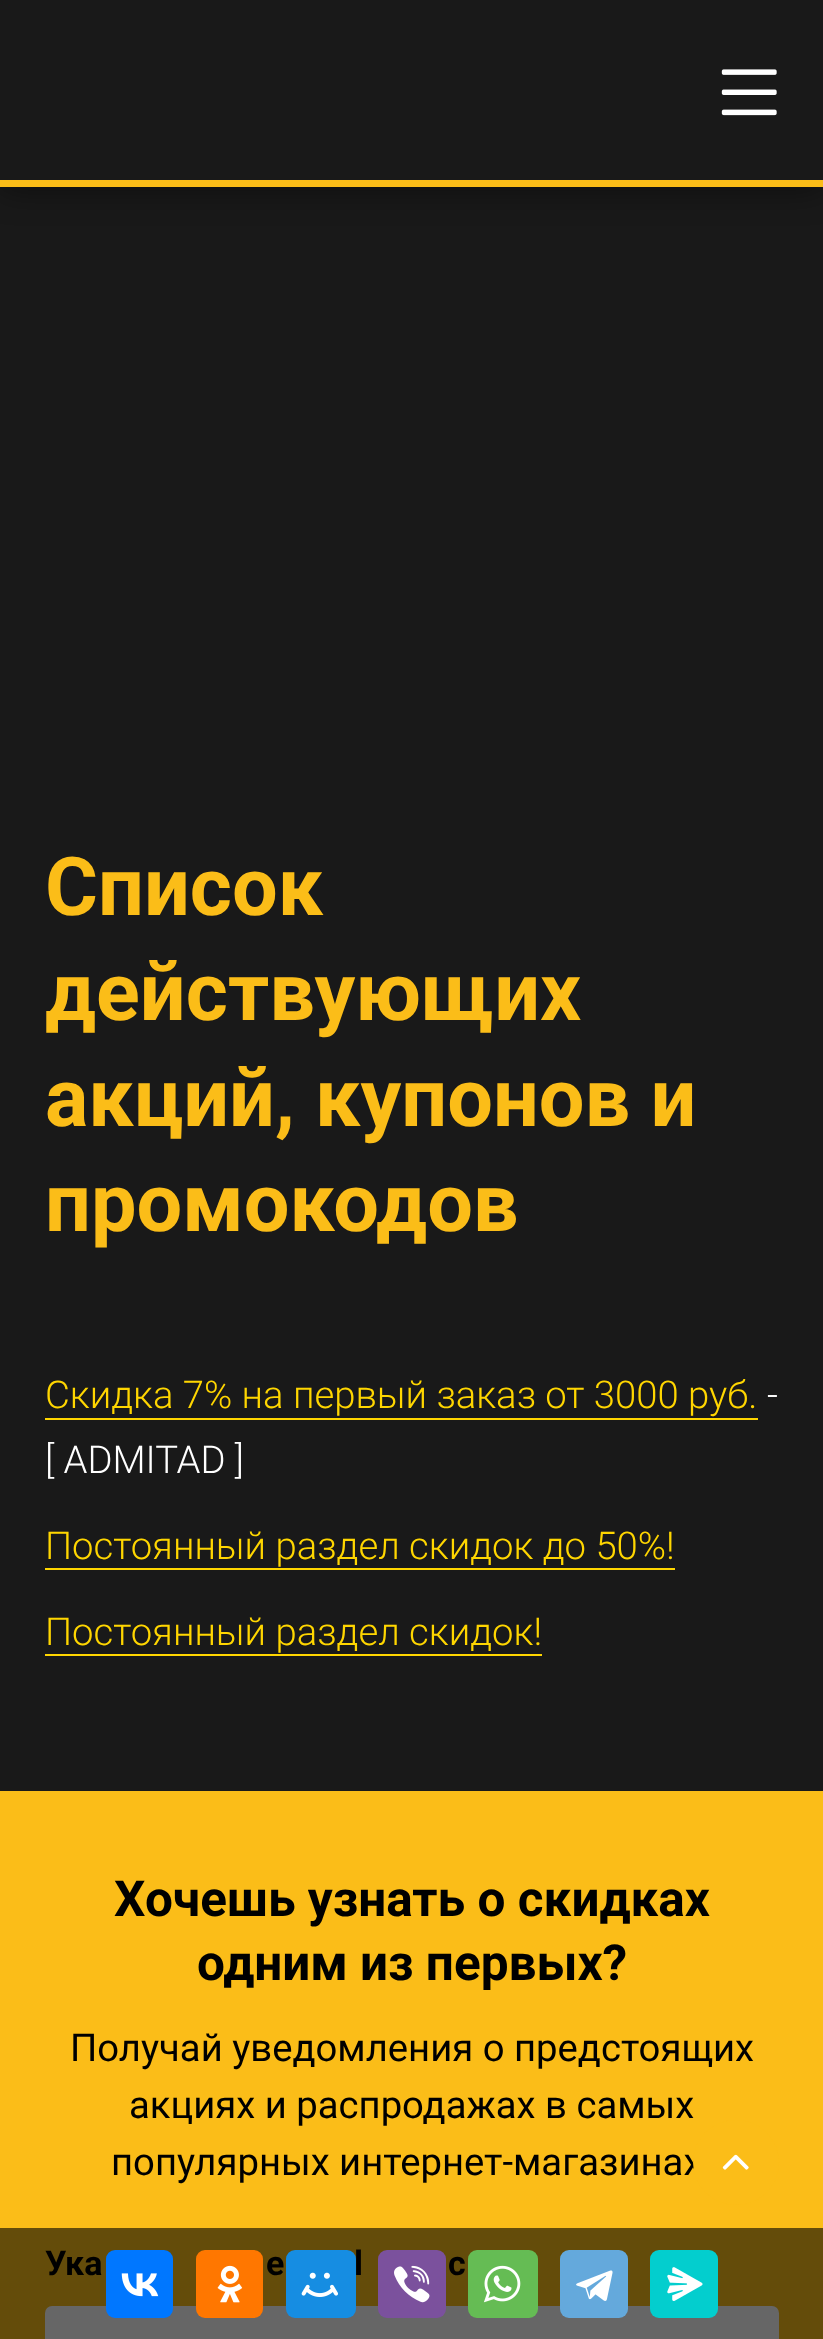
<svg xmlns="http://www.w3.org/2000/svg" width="823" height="2339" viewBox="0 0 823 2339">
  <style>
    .t1 { font: bold 81px Roboto; fill: #fbbd18; }
    .t2 { font: 300 38.25px Roboto; fill: #ffd600; }
    .t3 { font: 300 38.25px Roboto; fill: #fff; }
    .t4 { font: bold 49.5px Roboto; fill: #000; }
    .t5 { font: 38.25px Roboto; fill: #000; }
    .t6 { font: bold 34px Roboto; fill: #000; }
  </style>
  <rect width="100%" height="100%" fill="#191919"/>
  <rect x="0" y="0" width="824" height="187" fill="#00000080" filter="blur(17px)"/>
  <rect x="0" y="0" width="823" height="180" fill="#191919"/>
  <rect x="0" y="180" width="823" height="7" fill="#fbbd18"/>
  <image x="721" y="69" width="56" height="47" href="images/1.png"/>
  <text x="45" y="915" class="t1">Список</text>
  <text x="45" y="1020" class="t1">действующих</text>
  <text x="45" y="1126" class="t1">акций, купонов и</text>
  <text x="45" y="1231" class="t1">промокодов</text>
  <text x="45" y="1408" class="t2">Скидка 7% на первый заказ от 3000 руб.</text>
  <rect x="45" y="1418" width="713" height="2" fill="#ffd600"/>
  <text x="767" y="1408" class="t3">-</text>
  <text x="45" y="1473" class="t3">[ ADMITAD ]</text>
  <text x="45" y="1559" class="t2">Постоянный раздел скидок до 50%!</text>
  <rect x="45" y="1568" width="630" height="2" fill="#ffd600"/>
  <text x="45" y="1645" class="t2">Постоянный раздел скидок!</text>
  <rect x="45" y="1654" width="497" height="2" fill="#ffd600"/>
  <rect x="0" y="1791" width="823" height="437" fill="#fbbd18"/>
  <rect x="0" y="2228" width="823" height="111" fill="#644c0a"/>
  <text x="114" y="1916" class="t4">Хочешь узнать о скидках</text>
  <text x="197" y="1980" class="t4">одним из первых?</text>
  <text x="70" y="2061" class="t5">Получай уведомления о предстоящих</text>
  <text x="129" y="2118" class="t5">акциях и распродажах в самых</text>
  <text x="111" y="2175" class="t5">популярных интернет-магазинах</text>
  <text x="45" y="2275" class="t6">Ука</text>
  <text x="266" y="2275" class="t6">e</text>
  <text x="354" y="2275" class="t6">l</text>
  <text x="448" y="2275" class="t6">с</text>
  <rect x="45" y="2306" width="734" height="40" rx="7" fill="#666"/>
  <rect x="693" y="2120" width="86" height="85" rx="42.5" fill="#fbbd18"/>
  <image x="722" y="2154" width="27" height="16" href="images/2.png"/>
  <rect x="106" y="2250" width="67" height="68" rx="9" fill="#07f"/>
  <image x="121" y="2273" width="38" height="24" href="images/3.png"/>
  <rect x="196" y="2250" width="67" height="68" rx="9" fill="#f70"/>
  <image x="217" y="2265" width="26" height="38" href="images/4.png"/>
  <rect x="286" y="2250" width="70" height="68" rx="9" fill="#168de2"/>
  <image x="301" y="2272" width="37" height="25" href="images/5.png"/>
  <rect x="378" y="2250" width="68" height="68" rx="9" fill="#7b519d"/>
  <image x="394" y="2265" width="36" height="38" href="images/6.png"/>
  <rect x="468" y="2250" width="70" height="68" rx="9" fill="#65bc54"/>
  <image x="483" y="2265" width="38" height="38" href="images/7.png"/>
  <rect x="560" y="2250" width="68" height="68" rx="9" fill="#64a9dc"/>
  <image x="576" y="2270" width="37" height="31" href="images/8.png"/>
  <rect x="650" y="2250" width="68" height="68" rx="9" fill="#03cece"/>
  <image x="667" y="2267" width="36" height="34" href="images/9.png"/>
</svg>
